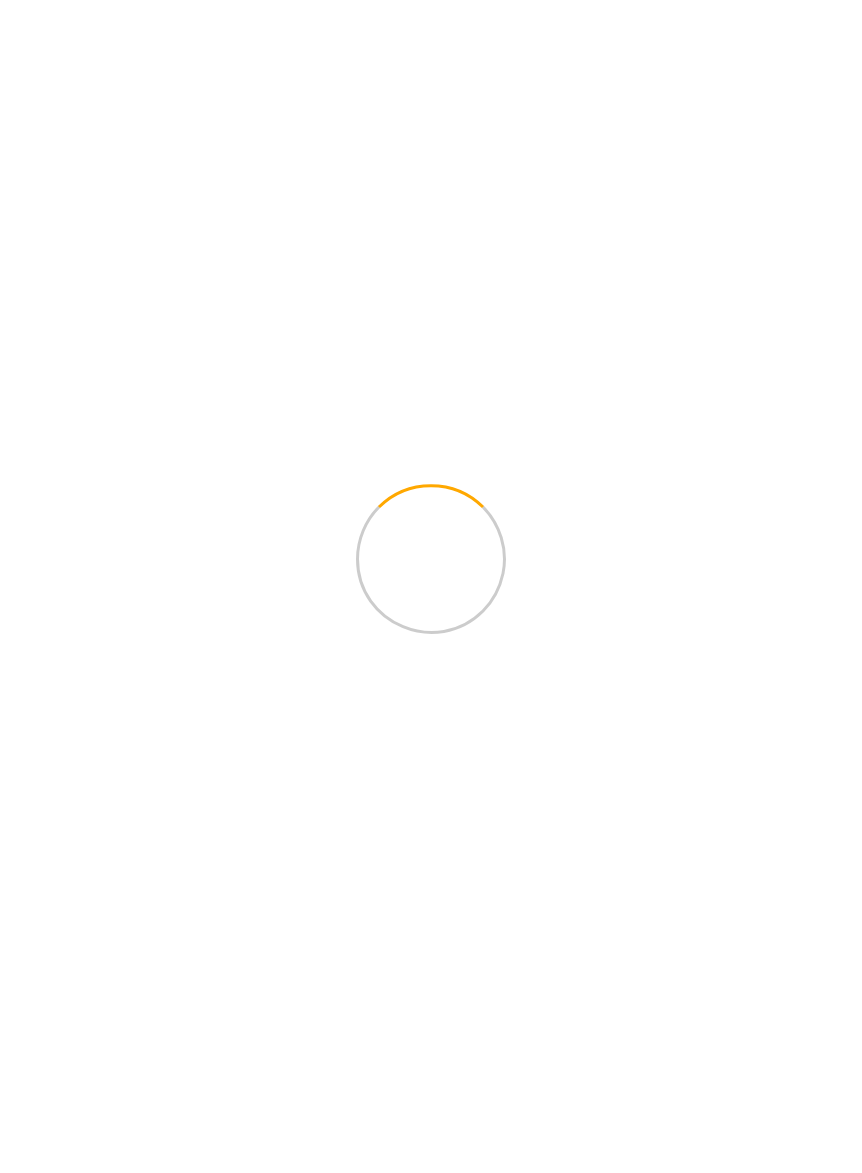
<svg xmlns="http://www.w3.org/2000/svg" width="862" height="1173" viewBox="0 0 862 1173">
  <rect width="100%" height="100%" fill="#fff"/>
  <path d="M379 507C407.5 478.5 454.5 478.5 483 507" fill="none" stroke="#ffa800" stroke-width="3"/>
  <path d="M483 507C500 524.5 508 549.5 503 573.5C500 587.5 493 601 483 611C437 657 357.5 624 357.5 559C357.5 539.5 365.5 520.5 379 507" fill="none" stroke="#00000033" stroke-width="3"/>
</svg>
